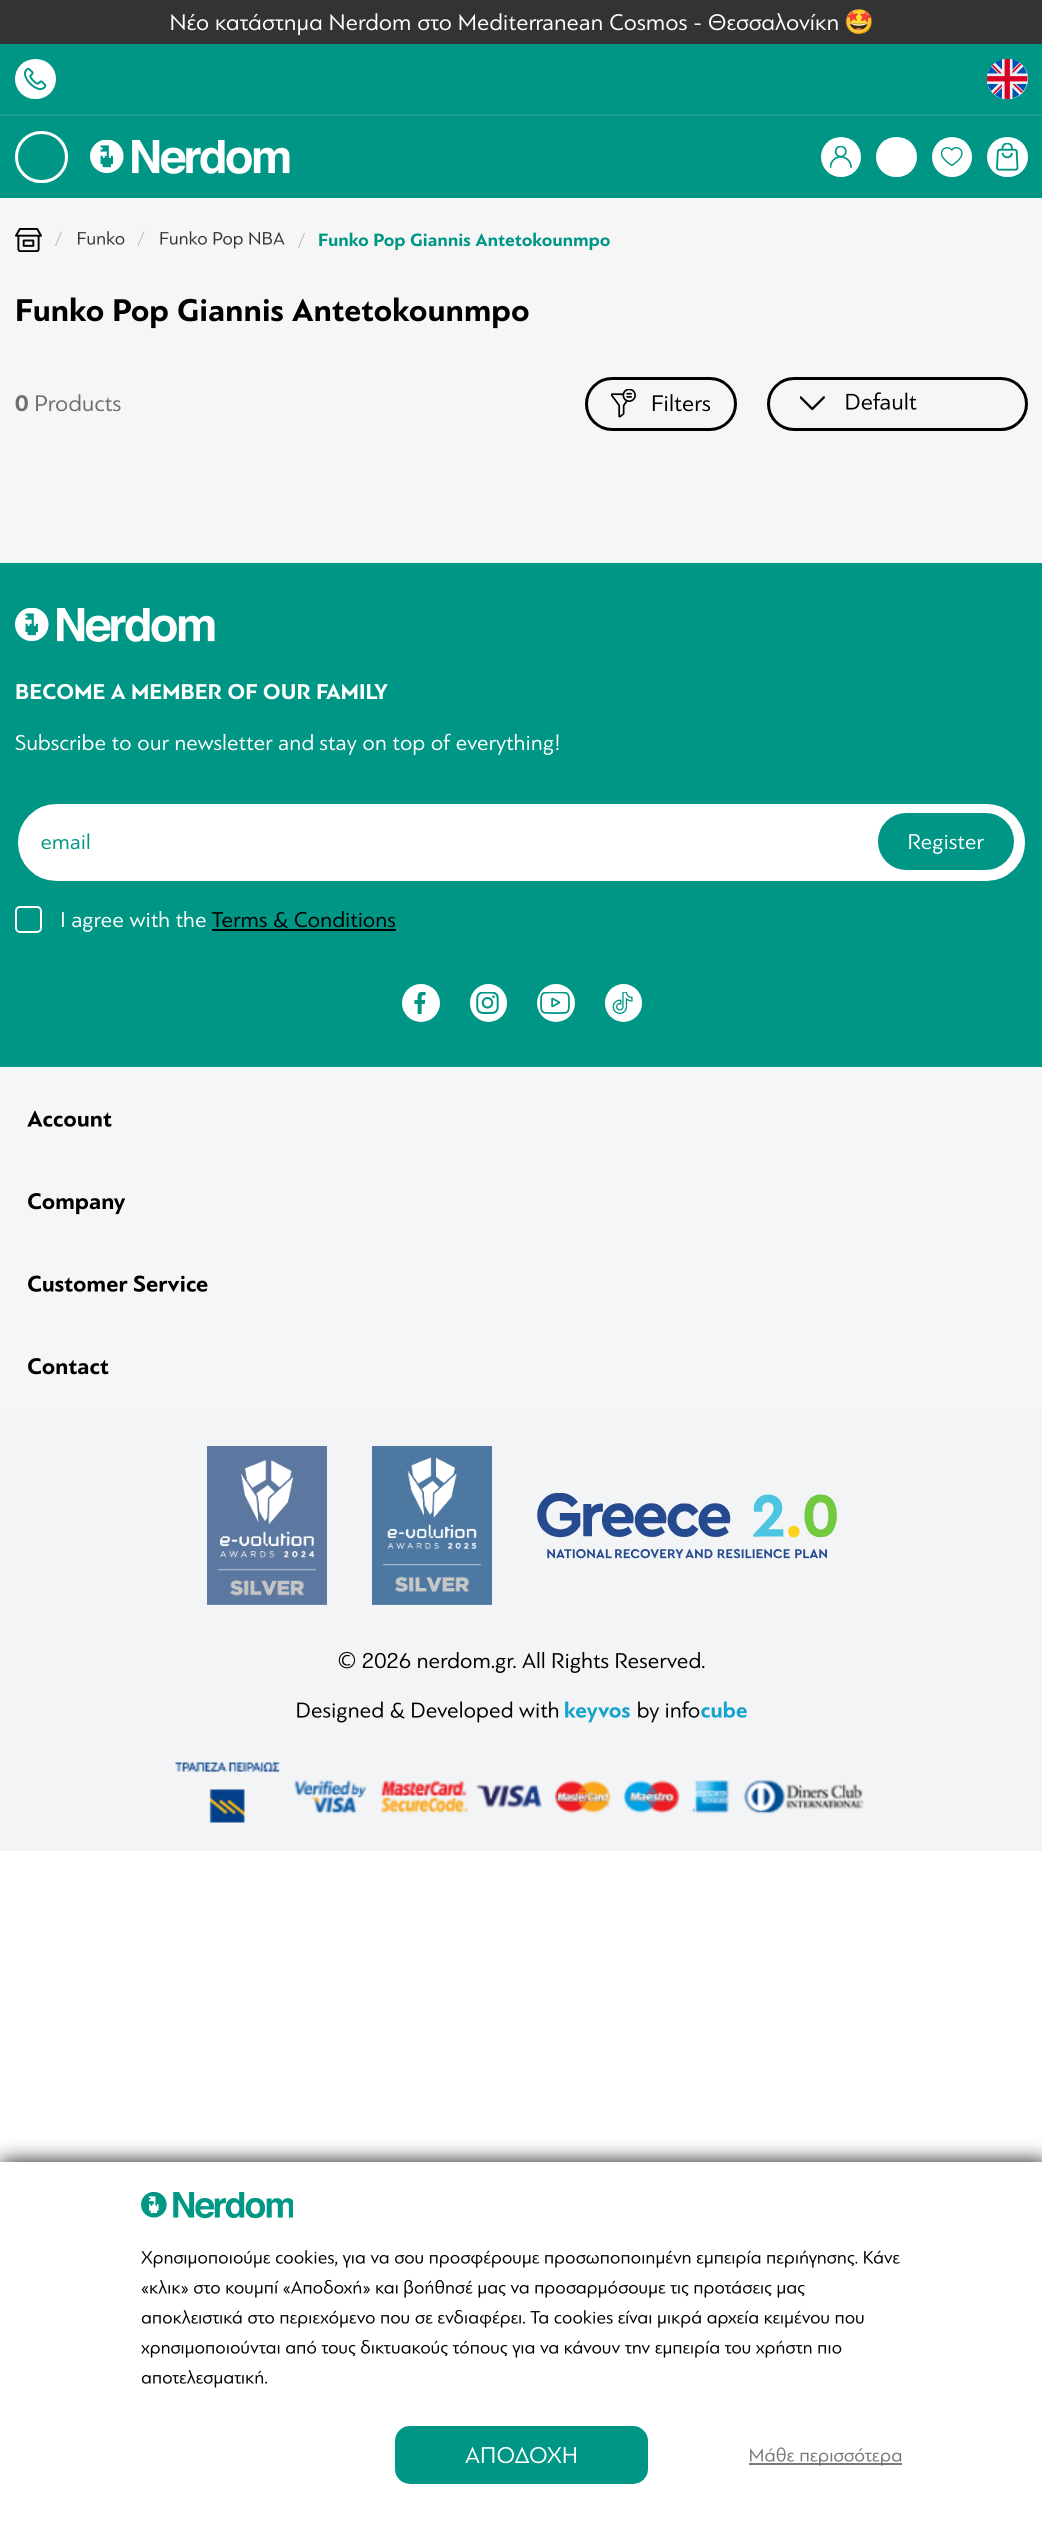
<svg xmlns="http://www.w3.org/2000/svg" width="1042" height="2543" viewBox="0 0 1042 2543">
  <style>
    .t1 { font: 24px Noto Color Emoji; fill: #fff; }
  </style>
  <defs>
    <clipPath id="clip1"><rect x="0" y="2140" width="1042" height="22"/></clipPath>
  </defs>
  <rect width="100%" height="100%" fill="#fff"/>
  <rect x="0" y="198" width="1042" height="1211" fill="#f6f6f6"/>
  <rect x="0" y="0" width="1042" height="44" fill="#333"/>
  <image x="171" y="13" width="667" height="23" href="images/1.png"/>
  <text x="844" y="30" class="t1">🤩</text>
  <rect x="0" y="44" width="1042" height="70" fill="#009685"/>
  <rect x="15" y="59" width="41" height="40" rx="20" fill="#fff"/>
  <image x="24" y="68" width="23" height="22" href="images/2.png"/>
  <rect x="987" y="59" width="41" height="40" rx="20" fill="#fff"/>
  <image x="987" y="59" width="41" height="40" href="images/3.png"/>
  <rect x="0" y="116" width="1042" height="82" fill="#009685"/>
  <rect x="0" y="114" width="1042" height="2" fill="#199f90"/>
  <rect x="16.5" y="132.5" width="50" height="49" rx="24.5" fill="none" stroke="#fff" stroke-width="3"/>
  <image x="90" y="140" width="200" height="34" href="images/4.png"/>
  <circle cx="841" cy="157" r="20" fill="#fff"/>
  <image x="830" y="146" width="22" height="22" href="images/5.png"/>
  <rect x="876" y="137" width="41" height="40" rx="20" fill="#fff"/>
  <circle cx="952" cy="157" r="20" fill="#fff"/>
  <image x="941" y="147" width="22" height="20" href="images/6.png"/>
  <rect x="987" y="137" width="41" height="40" rx="20" fill="#fff"/>
  <image x="996" y="143" width="23" height="28" href="images/7.png"/>
  <image x="15" y="228" width="27" height="24" href="images/8.png"/>
  <path d="M56 246L62 231.5H61L55 246Z" fill="#b5b5b5"/>
  <image x="78" y="231" width="47" height="14" href="images/9.png"/>
  <path d="M138.5 246L144.5 231.5H143.5L137.5 246Z" fill="#b5b5b5"/>
  <image x="160" y="231" width="125" height="18" href="images/10.png"/>
  <path d="M299 247.5L305 233H304L298 247.5Z" fill="#b5b5b5"/>
  <image x="319" y="232" width="291" height="19" href="images/11.png"/>
  <image x="17" y="297" width="512" height="32" href="images/12.png"/>
  <image x="15" y="395" width="13" height="17" href="images/13.png"/>
  <image x="36" y="394" width="85" height="18" href="images/14.png"/>
  <rect x="586.5" y="378.5" width="149" height="51" rx="25.5" fill="none" stroke="#000" stroke-width="3"/>
  <image x="611" y="389" width="25" height="29" href="images/15.png"/>
  <image x="652" y="394" width="59" height="18" href="images/16.png"/>
  <image x="800" y="396" width="25" height="15" href="images/17.png"/>
  <rect x="768.5" y="378.5" width="258" height="51" rx="25.5" fill="none" stroke="#000" stroke-width="3"/>
  <image x="846" y="392" width="71" height="18" href="images/18.png"/>
  <rect x="0" y="563" width="1042" height="504" fill="#009685"/>
  <image x="15" y="608" width="200" height="34" href="images/19.png"/>
  <image x="16" y="683" width="372" height="17" href="images/20.png"/>
  <image x="15" y="733" width="544" height="22" href="images/21.png"/>
  <rect x="16.5" y="802.5" width="1010" height="80" rx="40" fill="#fff" stroke="#009685" stroke-width="3"/>
  <image x="41" y="833" width="49" height="17" href="images/22.png"/>
  <rect x="876.5" y="811.5" width="139" height="60" rx="30" fill="#009685" stroke="#fff" stroke-width="3"/>
  <image x="909" y="834" width="75" height="20" href="images/23.png"/>
  <rect x="16" y="907" width="25" height="25" rx="4" fill="none" stroke="#fff" stroke-width="2"/>
  <image x="62" y="911" width="144" height="21" href="images/24.png"/>
  <image x="211" y="911" width="184" height="18" href="images/25.png"/>
  <rect x="212" y="929" width="184" height="2" fill="#000"/>
  <circle cx="421" cy="1003" r="19" fill="#fff"/>
  <image x="414" y="992" width="12" height="22" href="images/26.png"/>
  <rect x="470" y="984" width="37" height="38" rx="18.5" fill="#fff"/>
  <image x="476" y="992" width="23" height="22" href="images/27.png"/>
  <circle cx="556" cy="1003" r="19" fill="#fff"/>
  <image x="540" y="992" width="30" height="22" href="images/28.png"/>
  <rect x="605" y="984" width="37" height="38" rx="18.5" fill="#fff"/>
  <image x="612" y="992" width="21" height="22" href="images/29.png"/>
  <image x="27" y="1110" width="85" height="17" href="images/30.png"/>
  <image x="28" y="1193" width="98" height="22" href="images/31.png"/>
  <image x="28" y="1275" width="180" height="17" href="images/32.png"/>
  <image x="28" y="1358" width="81" height="17" href="images/33.png"/>
  <rect x="0" y="1409" width="1042" height="442" fill="#f3f4f6"/>
  <image x="207" y="1446" width="120" height="159" href="images/34.png"/>
  <image x="372" y="1446" width="120" height="159" href="images/35.png"/>
  <image x="537" y="1493" width="300" height="66" href="images/36.png"/>
  <image x="338" y="1651" width="367" height="22" href="images/37.png"/>
  <image x="297" y="1701" width="262" height="22" href="images/38.png"/>
  <image x="565" y="1701" width="65" height="22" href="images/39.png"/>
  <image x="638" y="1701" width="22" height="22" href="images/40.png"/>
  <image x="666" y="1701" width="34" height="17" href="images/41.png"/>
  <image x="701" y="1701" width="46" height="17" href="images/42.png"/>
  <image x="175" y="1762" width="689" height="61" href="images/43.png"/>
  <g clip-path="url(#clip1)">
    <rect x="0" y="2162" width="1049" height="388" fill="#121212" filter="blur(10.5px)"/>
  </g>
  <image x="141" y="2192" width="152" height="27" href="images/44.png"/>
  <image x="141" y="2250" width="759" height="18" href="images/45.png"/>
  <image x="141" y="2279" width="664" height="19" href="images/46.png"/>
  <image x="141" y="2309" width="723" height="19" href="images/47.png"/>
  <image x="141" y="2339" width="701" height="19" href="images/48.png"/>
  <image x="141" y="2370" width="127" height="18" href="images/49.png"/>
  <rect x="395" y="2426" width="253" height="58" rx="15" fill="#009685"/>
  <image x="465" y="2446" width="112" height="18" href="images/50.png"/>
  <rect x="749" y="2463" width="153" height="2" fill="#787878"/>
  <image x="750" y="2447" width="152" height="19" href="images/51.png"/>
</svg>
